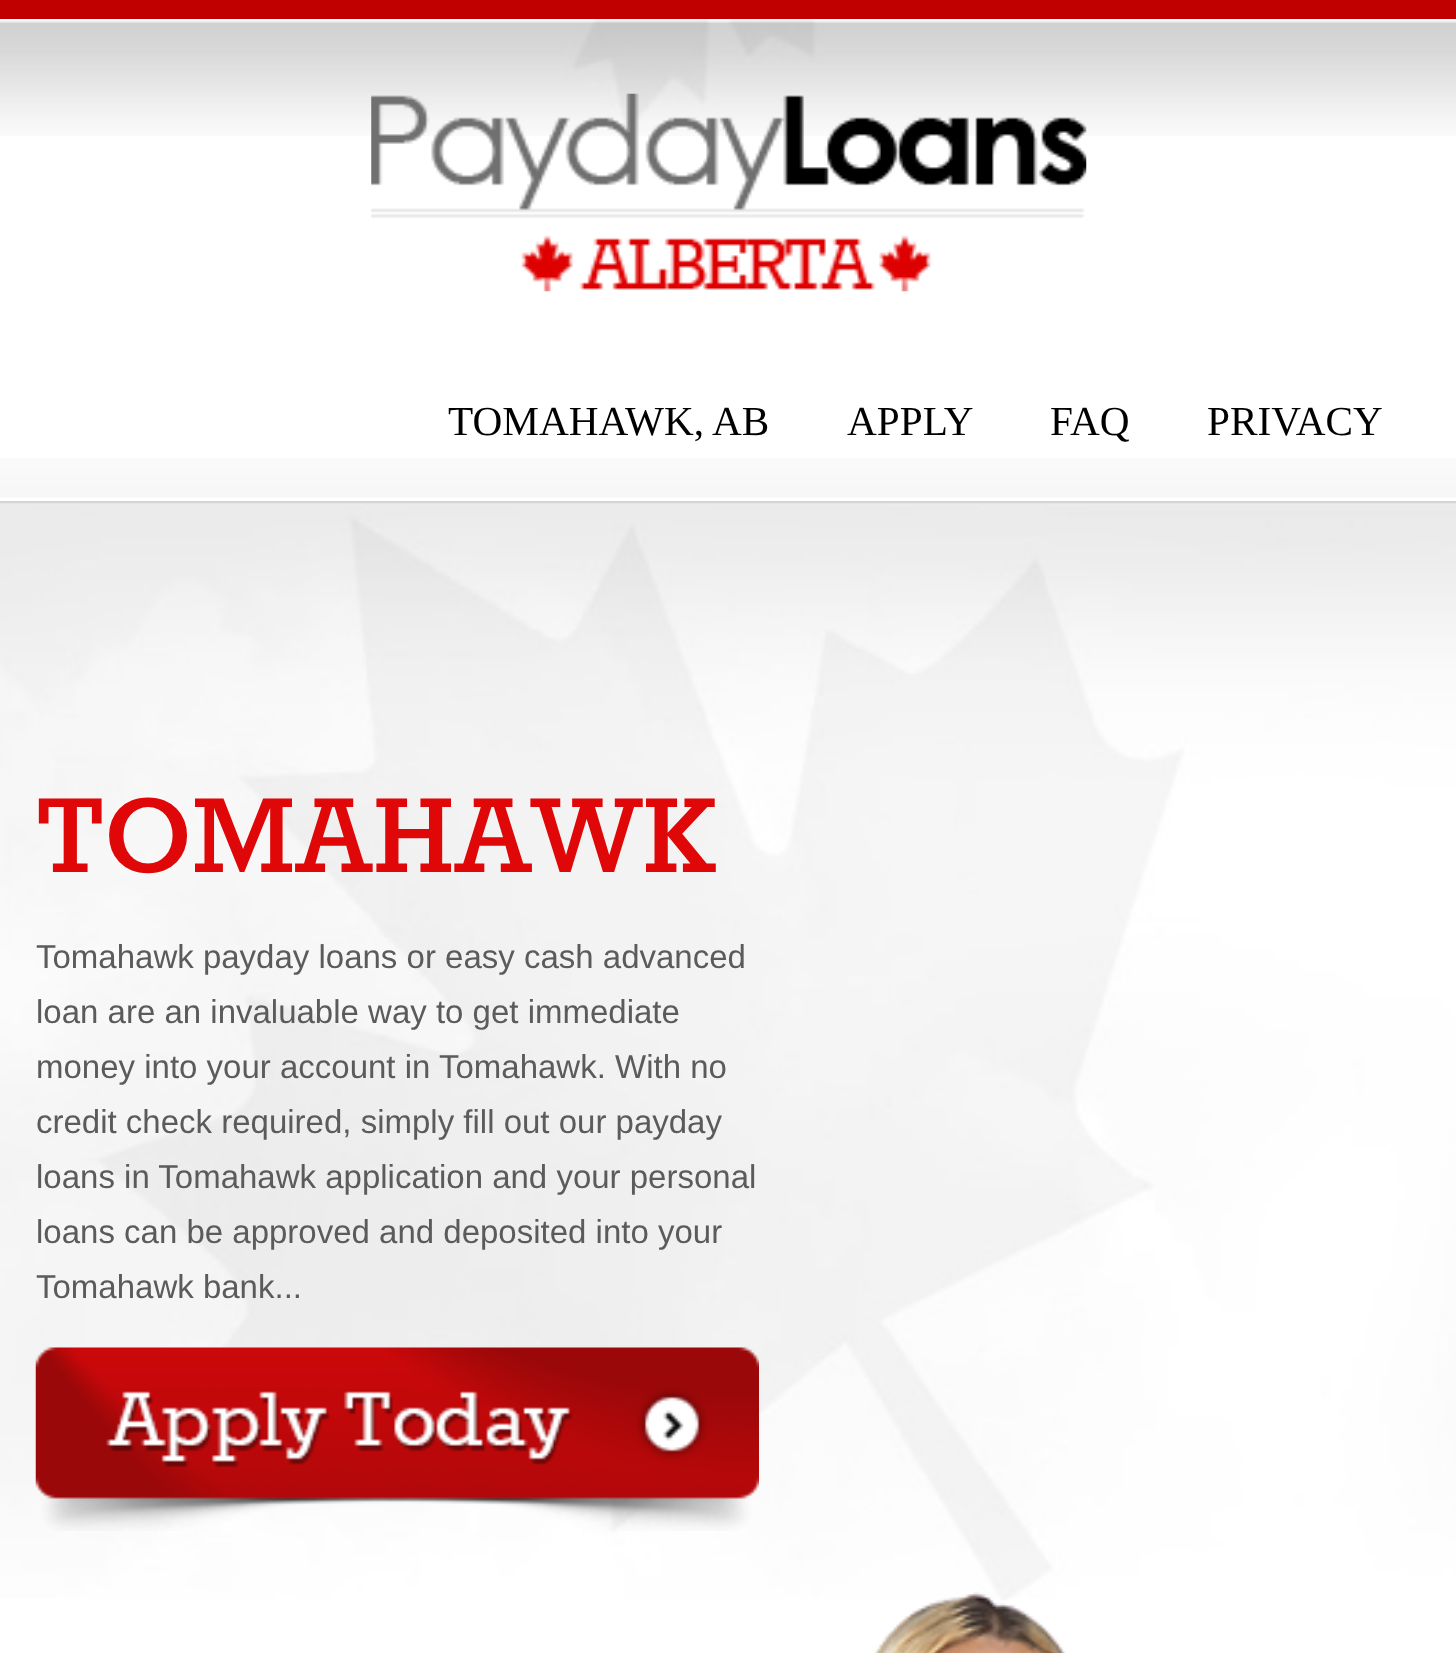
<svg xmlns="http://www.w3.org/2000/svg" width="1456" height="1653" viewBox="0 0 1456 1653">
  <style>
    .t1 { font: 41.25px Liberation Serif; fill: #000; }
    .t2 { font: bold 123.75px Rokkitt; fill: #df0707; }
    .t3 { font: 33px Liberation Sans; fill: #5b5b5b; }
  </style>
  <rect width="100%" height="100%" fill="#fff"/>
  <image x="0" y="19" width="1456" height="117" href="images/1.png"/>
  <rect x="0" y="0" width="1456" height="19" fill="#c00000"/>
  <image x="0" y="458" width="1456" height="40" href="images/2.png"/>
  <rect x="0" y="501" width="1456" height="3" fill="#d5d5d5"/>
  <image x="371" y="93" width="716" height="199" href="images/3.png"/>
  <text x="448" y="435" class="t1">TOMAHAWK, AB</text>
  <text x="847" y="435" class="t1">APPLY</text>
  <text x="1050" y="435" class="t1">FAQ</text>
  <text x="1207" y="435" class="t1">PRIVACY</text>
  <image x="0" y="503" width="1456" height="1098" href="images/4.png"/>
  <text x="36" y="872" class="t2">TOMAHAWK</text>
  <text x="36" y="968" class="t3">Tomahawk payday loans or easy cash advanced</text>
  <text x="36" y="1023" class="t3">loan are an invaluable way to get immediate</text>
  <text x="36" y="1078" class="t3">money into your account in Tomahawk. With no</text>
  <text x="36" y="1133" class="t3">credit check required, simply fill out our payday</text>
  <text x="36" y="1188" class="t3">loans in Tomahawk application and your personal</text>
  <text x="36" y="1243" class="t3">loans can be approved and deposited into your</text>
  <text x="36" y="1298" class="t3">Tomahawk bank...</text>
  <image x="35" y="1347" width="724" height="184" href="images/5.png"/>
  <image x="874" y="1591" width="192" height="62" href="images/6.png"/>
</svg>
